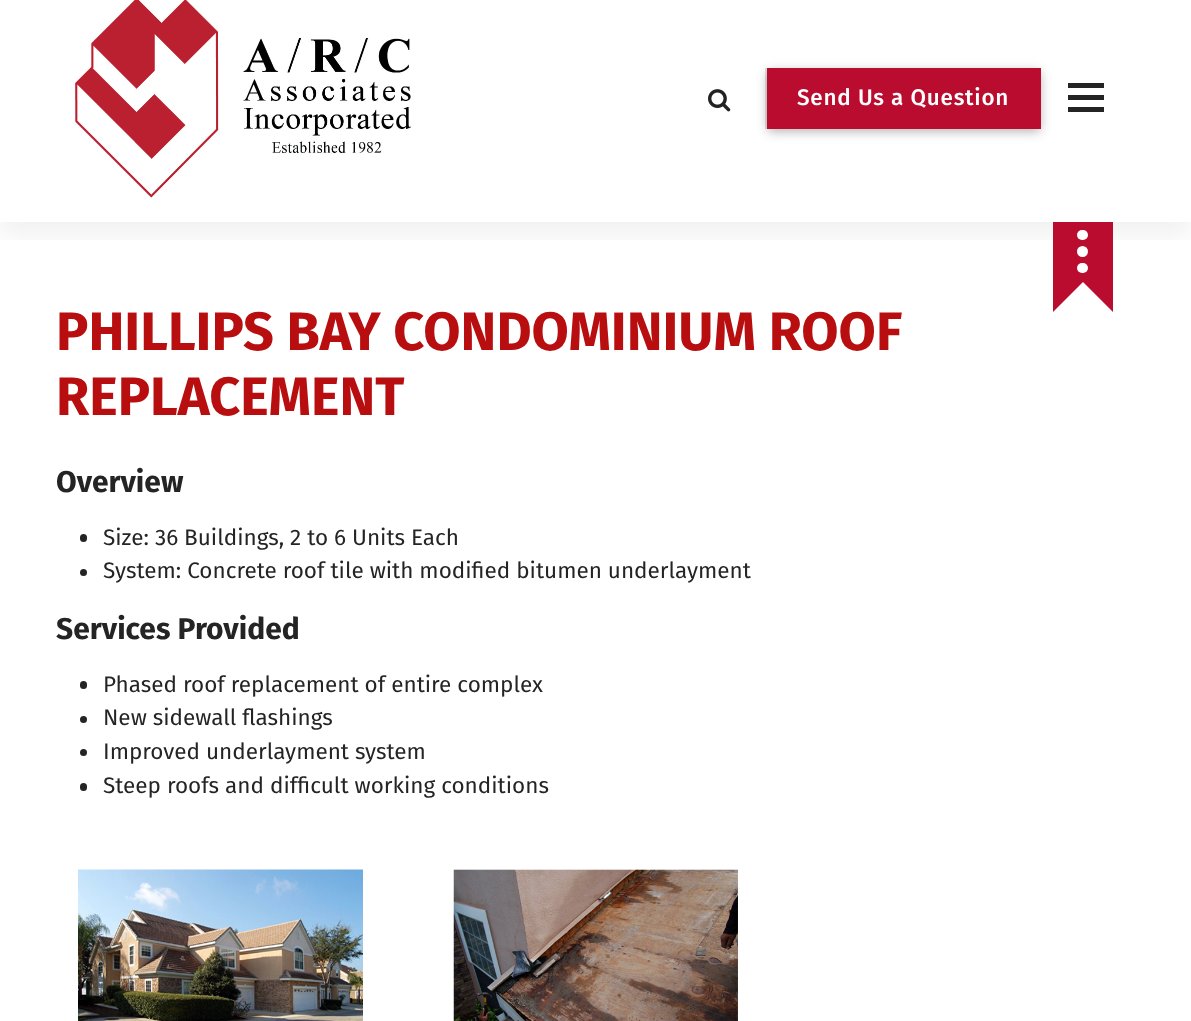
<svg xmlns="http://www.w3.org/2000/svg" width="1191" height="1021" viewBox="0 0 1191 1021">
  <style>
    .t1 { font: 500 22.5px Fira Sans; letter-spacing: 0.75px; fill: #fff; }
    .t2 { font: bold 54px Fira Sans; fill: #b80e0f; }
    .t3 { font: bold 30px Fira Sans; fill: #242424; }
    .t4 { font: 22.5px Fira Sans; fill: #242424; }
  </style>
  <defs>
    <clipPath id="clip1"><rect x="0" y="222" width="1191" height="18"/></clipPath>
  </defs>
  <rect width="100%" height="100%" fill="#fff"/>
  <g clip-path="url(#clip1)">
    <rect x="0" y="-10" width="1191" height="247" fill="#0000000d" filter="blur(11px)"/>
  </g>
  <image x="75" y="0" width="336" height="198" href="images/1.png"/>
  <image x="708" y="89" width="23" height="23" href="images/2.png"/>
  <rect x="765" y="68" width="2" height="61" fill="#e1e1e1"/>
  <rect x="768" y="72" width="272" height="59" fill="#00000052" filter="blur(6px)"/>
  <rect x="767" y="68" width="274" height="61" fill="#ba0c2f"/>
  <text x="797" y="105" class="t1">Send Us a Question</text>
  <rect x="1068" y="83" width="36" height="5" fill="#242424"/>
  <rect x="1068" y="95" width="36" height="5" fill="#242424"/>
  <rect x="1068" y="107" width="36" height="5" fill="#242424"/>
  <rect x="1053" y="222" width="60" height="60" fill="#ba0c2f"/>
  <path d="M1113 252V312L1083 282ZM1053 312V252L1083 282Z" fill="#ba0c2f"/>
  <circle cx="1082.5" cy="251.5" r="5.5" fill="#fff"/>
  <rect x="1077" y="230" width="11" height="10" rx="5" fill="#fff"/>
  <rect x="1077" y="263" width="11" height="10" rx="5" fill="#fff"/>
  <text x="56" y="350" class="t2">PHILLIPS BAY CONDOMINIUM ROOF</text>
  <text x="56" y="415" class="t2">REPLACEMENT</text>
  <text x="56" y="492" class="t3">Overview</text>
  <rect x="80" y="534" width="7" height="8" rx="3.5" fill="#242424"/>
  <text x="103" y="545" class="t4">Size: 36 Buildings, 2 to 6 Units Each</text>
  <circle cx="83.5" cy="572.5" r="3.5" fill="#242424"/>
  <text x="103" y="578" class="t4">System: Concrete roof tile with modified bitumen underlayment</text>
  <text x="56" y="639" class="t3">Services Provided</text>
  <rect x="80" y="681" width="7" height="8" rx="3.5" fill="#242424"/>
  <text x="103" y="692" class="t4">Phased roof replacement of entire complex</text>
  <circle cx="83.5" cy="719.5" r="3.5" fill="#242424"/>
  <text x="103" y="725" class="t4">New sidewall flashings</text>
  <circle cx="83.5" cy="752.5" r="3.5" fill="#242424"/>
  <text x="103" y="759" class="t4">Improved underlayment system</text>
  <rect x="80" y="783" width="7" height="8" rx="3.5" fill="#242424"/>
  <text x="103" y="793" class="t4">Steep roofs and difficult working conditions</text>
  <image x="78" y="869" width="285" height="152" href="images/3.png"/>
  <image x="453" y="869" width="285" height="152" href="images/4.png"/>
</svg>
